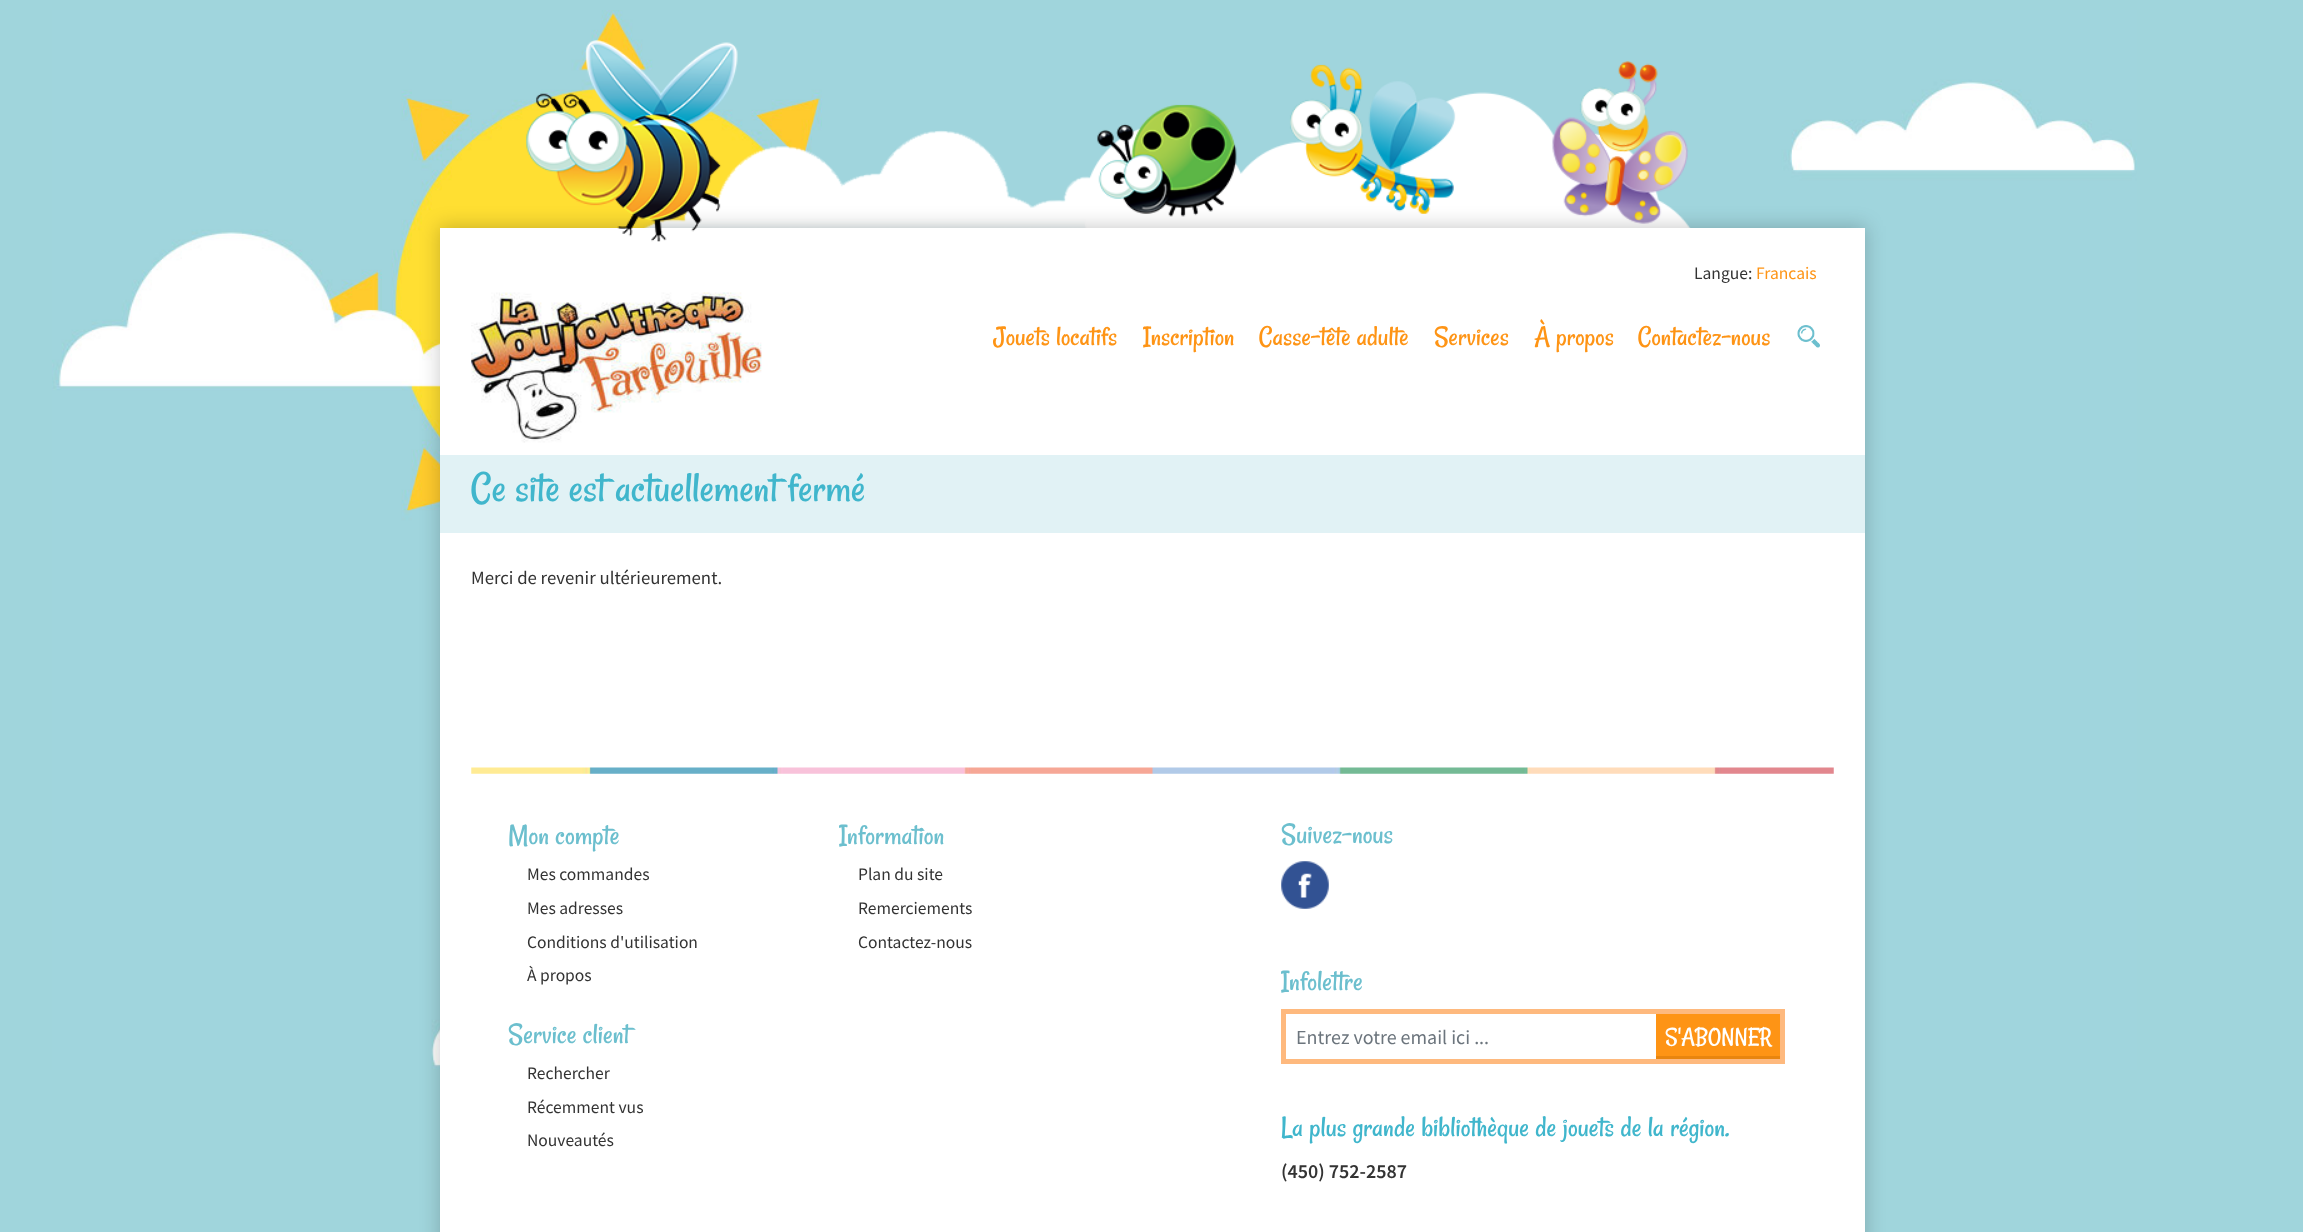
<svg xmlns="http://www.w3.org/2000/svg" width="2303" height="1232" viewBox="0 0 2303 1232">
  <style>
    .t1 { font: 17.5px Source Sans Pro; fill: #333; }
    .t2 { font: 17.5px Source Sans Pro; fill: #fe9415; }
    .t3 { font: 28.75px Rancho; fill: #fe9415; }
    .t4 { font: 43.75px Rancho; fill: #40b6cc; }
    .t5 { font: 18.75px Source Sans Pro; fill: #333; }
    .t6 { font: 30px Rancho; fill: #6cbfce; }
    .t7 { font: 20px Source Sans Pro; fill: #6c757d; }
    .t8 { font: 25px Rancho; fill: #fff; }
    .t9 { font: 30px Rancho; fill: #40b6cc; }
    .t10 { font: 600 20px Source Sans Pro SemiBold; fill: #333; }
  </style>
  <rect width="100%" height="100%" fill="#a0d5dc"/>
  <image x="52" y="10" width="2085" height="1060" href="images/1.png"/>
  <image x="643" y="61" width="1048" height="167" href="images/2.png"/>
  <rect x="439" y="226" width="1427" height="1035" fill="#00000033" filter="blur(9.5px)"/>
  <rect x="440" y="228" width="1425" height="1004" fill="#fff"/>
  <image x="526" y="39" width="212" height="203" href="images/3.png"/>
  <text x="1694" y="279" class="t1">Langue:</text>
  <text x="1756" y="279" class="t2">Francais</text>
  <image x="471" y="292" width="291" height="151" href="images/4.png"/>
  <text x="993" y="345" class="t3">Jouets locatifs</text>
  <text x="1143" y="345" class="t3">Inscription</text>
  <text x="1259" y="345" class="t3">Casse-tête adulte</text>
  <text x="1434" y="345" class="t3">Services</text>
  <text x="1534" y="345" class="t3">À propos</text>
  <text x="1638" y="345" class="t3">Contactez-nous</text>
  <image x="1797" y="325" width="23" height="23" href="images/5.png"/>
  <rect x="440" y="455" width="1425" height="78" fill="#e1f2f5"/>
  <text x="471" y="501" class="t4">Ce site est actuellement fermé</text>
  <text x="471" y="584" class="t5">Merci de revenir ultérieurement.</text>
  <image x="471" y="767" width="1363" height="7" href="images/6.png"/>
  <text x="508" y="844" class="t6">Mon compte</text>
  <text x="527" y="880" class="t1">Mes commandes</text>
  <text x="527" y="914" class="t1">Mes adresses</text>
  <text x="527" y="948" class="t1">Conditions d'utilisation</text>
  <text x="527" y="981" class="t1">À propos</text>
  <text x="508" y="1043" class="t6">Service client</text>
  <text x="527" y="1079" class="t1">Rechercher</text>
  <text x="527" y="1113" class="t1">Récemment vus</text>
  <text x="527" y="1146" class="t1">Nouveautés</text>
  <text x="839" y="844" class="t6">Information</text>
  <text x="858" y="880" class="t1">Plan du site</text>
  <text x="858" y="914" class="t1">Remerciements</text>
  <text x="858" y="948" class="t1">Contactez-nous</text>
  <text x="1281" y="843" class="t6">Suivez-nous</text>
  <image x="1281" y="861" width="48" height="48" href="images/7.png"/>
  <text x="1281" y="990" class="t6">Infolettre</text>
  <rect x="1283.5" y="1011.5" width="499" height="50" fill="none" stroke="#feb97e" stroke-width="5"/>
  <rect x="1655" y="1056" width="125" height="3" fill="#e8850f"/>
  <rect x="1655" y="1056" width="1" height="3" fill="#fff"/>
  <text x="1296" y="1044" class="t7">Entrez votre email ici ...</text>
  <rect x="1656" y="1014" width="124" height="42" fill="#fe9415"/>
  <text x="1665" y="1044" class="t8">S'ABONNER</text>
  <text x="1281" y="1136" class="t9">La plus grande bibliothèque de jouets de la région.</text>
  <text x="1281" y="1178" class="t10">(450) 752-2587</text>
</svg>
